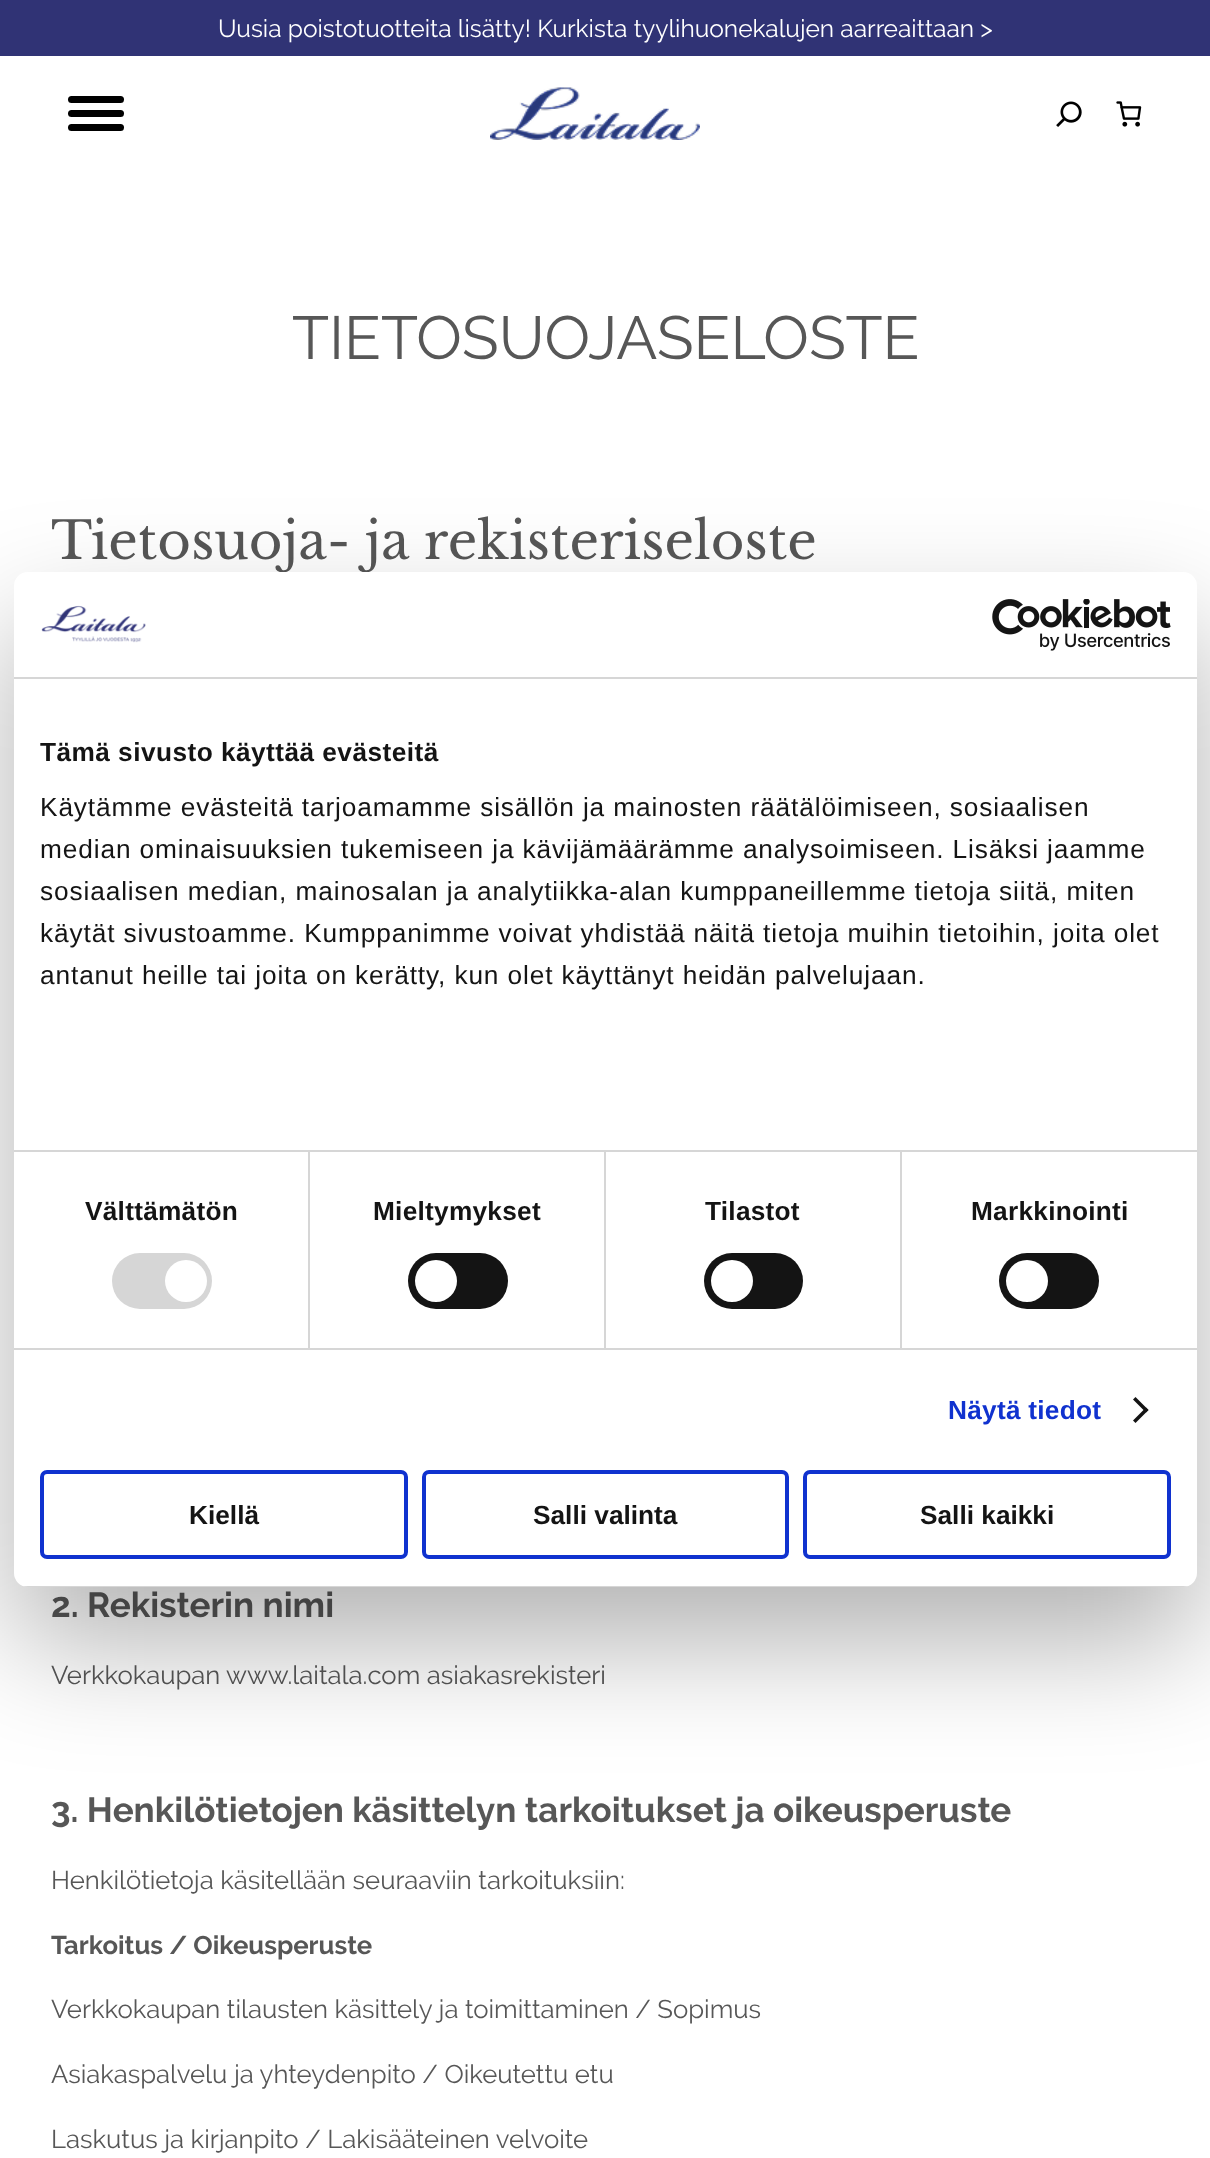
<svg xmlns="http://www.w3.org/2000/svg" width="1210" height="2158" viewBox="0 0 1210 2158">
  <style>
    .t1 { font: 24.5px Raleway; fill: #fff; }
    .t2 { font: 60.75px Raleway; fill: #575757; }
    .t3 { font: 51.5px Libre Baskerville; fill: #575757; }
    .t4 { font: bold 35px Raleway; fill: #575757; }
    .t5 { font: 25.7px Raleway; fill: #575757; }
    .t6 { font: bold 25.7px Raleway; fill: #575757; }
    .t7 { font: bold 26.25px Liberation Sans; letter-spacing: 0.45px; fill: #141414; }
    .t8 { font: 26.25px Liberation Sans; letter-spacing: 0.88px; fill: #141414; }
    .t9 { font: bold 26.25px Liberation Sans; letter-spacing: 0.25px; fill: #141414; }
    .t10 { font: bold 26.25px Liberation Sans; letter-spacing: 0.25px; fill: #1032cf; }
    .t11 { font: bold 26.25px Liberation Sans; fill: #141414; }
  </style>
  <defs>
    <clipPath id="clip1"><rect x="14" y="572" width="1183" height="1015" rx="14"/></clipPath>
  </defs>
  <rect width="100%" height="100%" fill="#fff"/>
  <rect x="0" y="0" width="1210" height="56" fill="#303375"/>
  <text x="218" y="37" class="t1">Uusia poistotuotteita lisätty! Kurkista tyylihuonekalujen aarreaittaan &gt;</text>
  <rect x="68" y="96" width="56" height="7" rx="3.5" fill="#000"/>
  <rect x="68" y="110" width="56" height="7" rx="3.5" fill="#000"/>
  <rect x="68" y="124" width="56" height="7" rx="3.5" fill="#000"/>
  <image x="490" y="87" width="210" height="53" href="images/1.png"/>
  <image x="1056" y="101" width="26" height="26" href="images/2.png"/>
  <image x="1116" y="101" width="26" height="26" href="images/3.png"/>
  <text x="292" y="359" class="t2">TIETOSUOJASELOSTE</text>
  <text x="51" y="559" class="t3">Tietosuoja- ja rekisteriseloste</text>
  <text x="51" y="1617" class="t4">2. Rekisterin nimi</text>
  <text x="51" y="1684" class="t5">Verkkokaupan www.laitala.com asiakasrekisteri</text>
  <text x="51" y="1822" class="t4">3. Henkilötietojen käsittelyn tarkoitukset ja oikeusperuste</text>
  <text x="51" y="1889" class="t5">Henkilötietoja käsitellään seuraaviin tarkoituksiin:</text>
  <text x="51" y="1954" class="t6">Tarkoitus / Oikeusperuste</text>
  <text x="51" y="2018" class="t5">Verkkokaupan tilausten käsittely ja toimittaminen / Sopimus</text>
  <text x="51" y="2083" class="t5">Asiakaspalvelu ja yhteydenpito / Oikeutettu etu</text>
  <text x="51" y="2148" class="t5">Laskutus ja kirjanpito / Lakisääteinen velvoite</text>
  <rect x="14" y="628" width="1183" height="1015" rx="14" fill="#0000004d" filter="blur(59.5px)"/>
  <rect x="14" y="572" width="1183" height="1015" rx="14" fill="#fff"/>
  <rect x="14" y="677" width="1183" height="2" fill="#d6d6d6"/>
  <image x="41" y="605" width="105" height="38" href="images/4.png"/>
  <image x="992" y="599" width="179" height="52" href="images/5.png"/>
  <rect x="14" y="1150" width="1183" height="2" fill="#d6d6d6"/>
  <text x="40" y="761" class="t7">Tämä sivusto käyttää evästeitä</text>
  <text x="40" y="816" class="t8">Käytämme evästeitä tarjoamamme sisällön ja mainosten räätälöimiseen, sosiaalisen</text>
  <text x="40" y="858" class="t8">median ominaisuuksien tukemiseen ja kävijämäärämme analysoimiseen. Lisäksi jaamme</text>
  <text x="40" y="900" class="t8">sosiaalisen median, mainosalan ja analytiikka-alan kumppaneillemme tietoja siitä, miten</text>
  <text x="40" y="942" class="t8">käytät sivustoamme. Kumppanimme voivat yhdistää näitä tietoja muihin tietoihin, joita olet</text>
  <text x="40" y="984" class="t8">antanut heille tai joita on kerätty, kun olet käyttänyt heidän palvelujaan.</text>
  <rect x="14" y="1348" width="1183" height="2" fill="#d6d6d6"/>
  <rect x="308" y="1152" width="2" height="196" fill="#d6d6d6"/>
  <text x="85" y="1220" class="t9">Välttämätön</text>
  <rect x="112" y="1253" width="100" height="56" rx="28" fill="#d6d6d6"/>
  <circle cx="186" cy="1281" r="21" fill="#fff"/>
  <rect x="604" y="1152" width="2" height="196" fill="#d6d6d6"/>
  <text x="373" y="1220" class="t9">Mieltymykset</text>
  <rect x="408" y="1253" width="100" height="56" rx="28" fill="#141414"/>
  <circle cx="436" cy="1281" r="21" fill="#fff"/>
  <rect x="900" y="1152" width="2" height="196" fill="#d6d6d6"/>
  <text x="705" y="1220" class="t9">Tilastot</text>
  <rect x="704" y="1253" width="99" height="56" rx="28" fill="#141414"/>
  <circle cx="732" cy="1281" r="21" fill="#fff"/>
  <text x="971" y="1220" class="t9">Markkinointi</text>
  <rect x="999" y="1253" width="100" height="56" rx="28" fill="#141414"/>
  <circle cx="1027" cy="1281" r="21" fill="#fff"/>
  <text x="948" y="1419" class="t10">Näytä tiedot</text>
  <path d="M1135.5 1397L1148.5 1410L1146 1412.5L1133 1399.5Z" fill="#141414"/>
  <path d="M1146 1407.5L1148.5 1410L1135.5 1423L1133 1420.5Z" fill="#141414"/>
  <g clip-path="url(#clip1)">
    <rect x="23" y="1586" width="1165" height="1" fill="#d6d6d6"/>
  </g>
  <rect x="42" y="1472" width="364" height="85" rx="5" fill="none" stroke="#1032cf" stroke-width="4"/>
  <text x="189" y="1524" class="t11">Kiellä</text>
  <rect x="424" y="1472" width="363" height="85" rx="5" fill="none" stroke="#1032cf" stroke-width="4"/>
  <text x="533" y="1524" class="t11">Salli valinta</text>
  <rect x="805" y="1472" width="364" height="85" rx="5" fill="none" stroke="#1032cf" stroke-width="4"/>
  <text x="920" y="1524" class="t11">Salli kaikki</text>
</svg>
